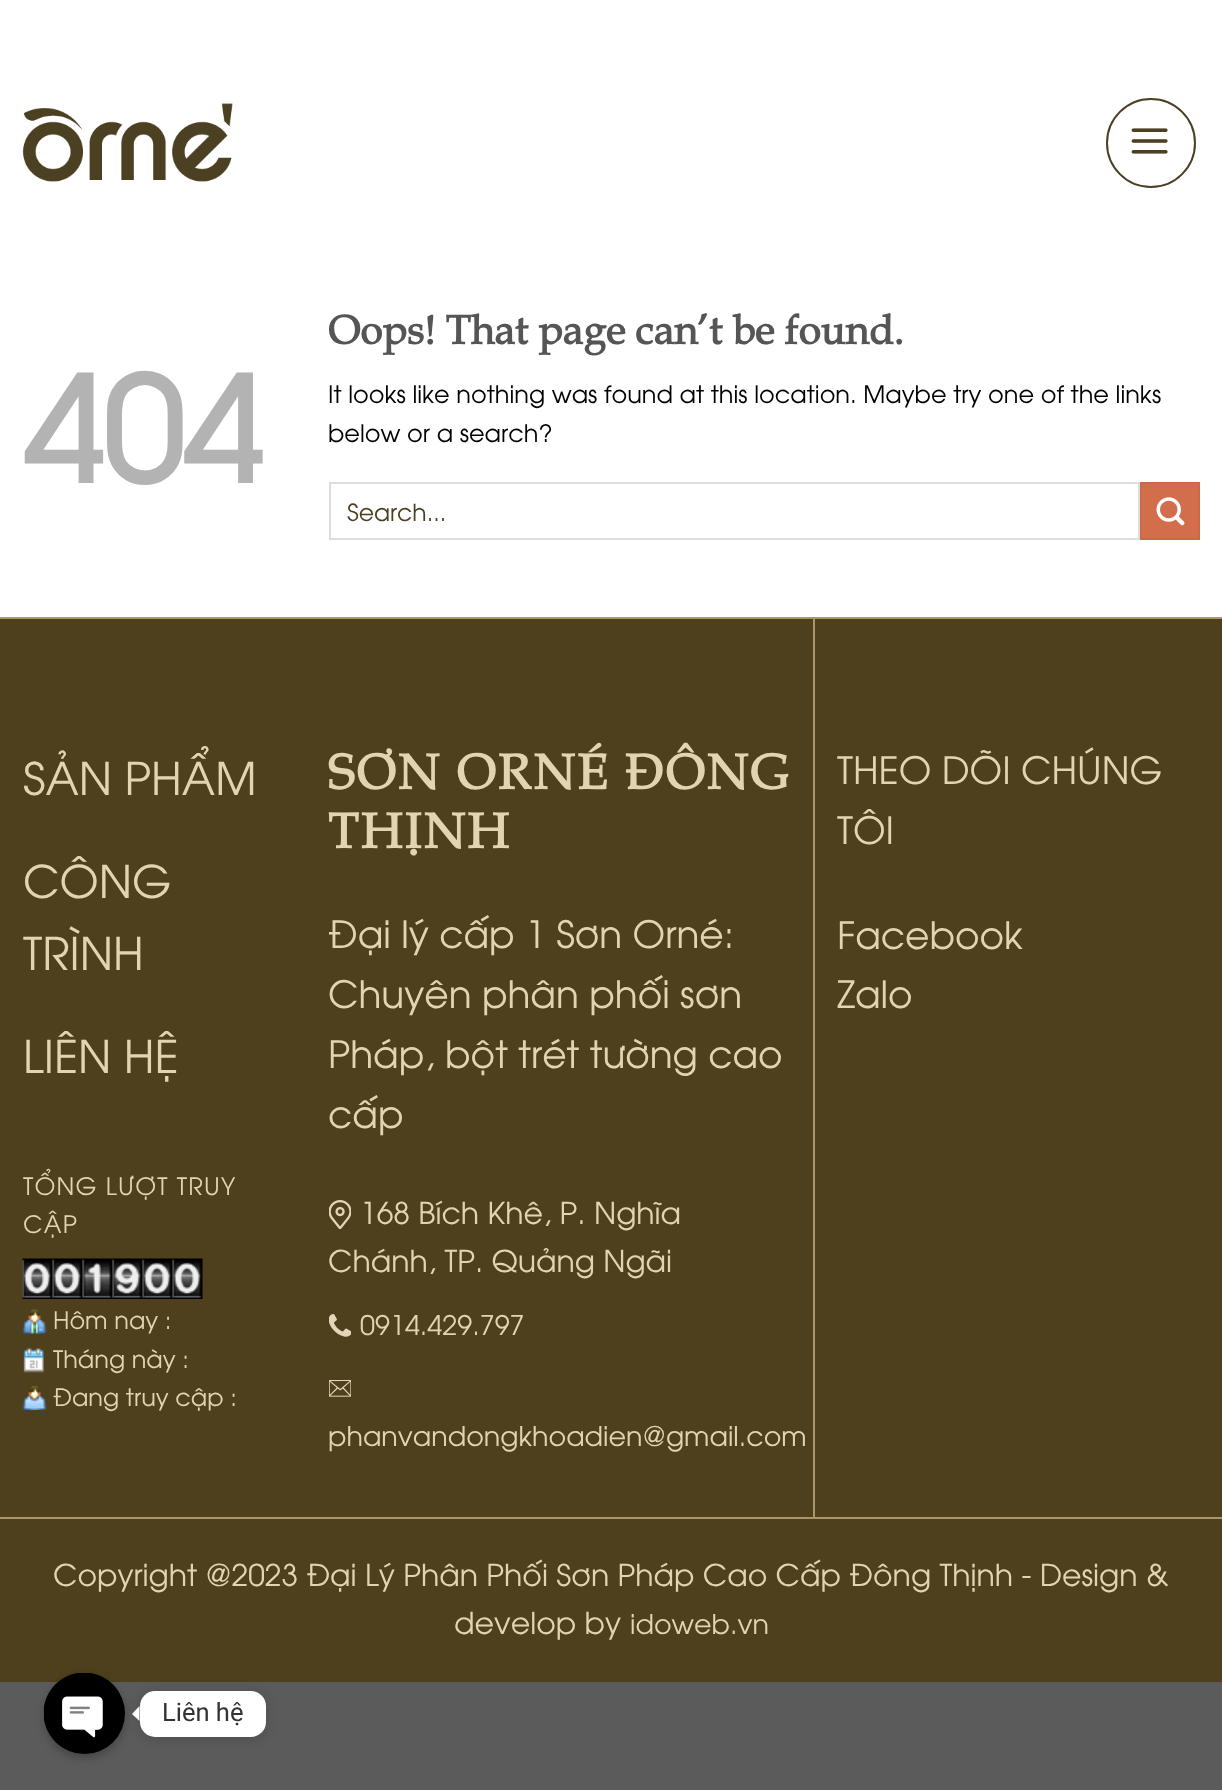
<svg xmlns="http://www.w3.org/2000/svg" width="1222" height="1790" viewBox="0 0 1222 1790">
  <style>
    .t1 { font: bold 144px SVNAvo; fill: #b3b3b3; }
    .t2 { font: bold 40.75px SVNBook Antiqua; fill: #555; }
    .t3 { font: 24px SVNAvo; fill: #000; }
    .t4 { font: 23.5px SVNAvo; fill: #4c4022; }
    .t5 { font: 45px SVNAvo; fill: #e2d3b1; }
    .t6 { font: 24px SVNAvo; letter-spacing: 1.25px; fill: #e2d3b1; }
    .t7 { font: 24px SVNAvo; fill: #e2d3b1; }
    .t8 { font: bold 49.5px SVNBook Antiqua; letter-spacing: 2.5px; fill: #e2d3b1; }
    .t9 { font: 37.5px SVNAvo; fill: #e2d3b1; }
    .t10 { font: 30px SVNAvo; fill: #e2d3b1; }
    .t11 { font: 27px SVNAvo; fill: #e2d3b1; }
    .t12 { font: 25.5px Roboto; fill: #333; }
  </style>
  <rect width="100%" height="100%" fill="#5b5b5b"/>
  <rect x="0" y="0" width="1222" height="617" fill="#fff"/>
  <image x="22" y="103" width="211" height="79" href="images/1.png"/>
  <circle cx="1151" cy="143" r="44" fill="none" stroke="#4c4022" stroke-width="2"/>
  <image x="1131" y="128" width="37" height="26" href="images/2.png"/>
  <text x="23" y="483" class="t1">404</text>
  <text x="328" y="344" class="t2">Oops! That page can’t be found.</text>
  <text x="328" y="403" class="t3">It looks like nothing was found at this location. Maybe try one of the links</text>
  <text x="328" y="442" class="t3">below or a search?</text>
  <rect x="330" y="483" width="809" height="56" fill="none" stroke="#ddd" stroke-width="2"/>
  <text x="347" y="521" class="t4">Search…</text>
  <rect x="1141" y="483" width="58" height="56" fill="#d26e4b" stroke="#c86947" stroke-width="2"/>
  <image x="1156" y="497" width="29" height="29" href="images/3.png"/>
  <rect x="0" y="619" width="1222" height="1063" fill="#4e3f1d"/>
  <rect x="0" y="617" width="1222" height="2" fill="#aa966a"/>
  <text x="23" y="795" class="t5">SẢN PHẨM</text>
  <text x="23" y="898" class="t5">CÔNG</text>
  <text x="23" y="970" class="t5">TRÌNH</text>
  <text x="23" y="1073" class="t5">LIÊN HỆ</text>
  <text x="23" y="1195" class="t6">TỔNG LƯỢT TRUY</text>
  <text x="23" y="1233" class="t6">CẬP</text>
  <image x="22" y="1258" width="31" height="41" href="images/4.png"/>
  <image x="52" y="1258" width="31" height="41" href="images/5.png"/>
  <image x="82" y="1258" width="31" height="41" href="images/6.png"/>
  <image x="112" y="1258" width="31" height="41" href="images/7.png"/>
  <image x="142" y="1258" width="31" height="41" href="images/5.png"/>
  <image x="172" y="1258" width="31" height="41" href="images/5.png"/>
  <image x="22" y="1309" width="25" height="25" href="images/8.png"/>
  <text x="53" y="1329" class="t7">Hôm nay :</text>
  <image x="23" y="1348" width="21" height="25" href="images/9.png"/>
  <text x="53" y="1368" class="t7">Tháng này :</text>
  <image x="22" y="1386" width="25" height="24" href="images/10.png"/>
  <text x="53" y="1406" class="t7">Đang truy cập :</text>
  <rect x="813" y="618" width="2" height="899" fill="#aa966a"/>
  <text x="328" y="789" class="t8">SƠN ORNÉ ĐÔNG</text>
  <text x="328" y="848" class="t8">THỊNH</text>
  <text x="328" y="948" class="t9">Đại lý cấp 1 Sơn Orné:</text>
  <text x="328" y="1008" class="t9">Chuyên phân phối sơn</text>
  <text x="328" y="1068" class="t9">Pháp, bột trét tường cao</text>
  <text x="328" y="1128" class="t9">cấp</text>
  <image x="329" y="1200" width="22" height="30" href="images/11.png"/>
  <text x="360" y="1224" class="t10">168 Bích Khê, P. Nghĩa</text>
  <text x="328" y="1272" class="t10">Chánh, TP. Quảng Ngãi</text>
  <image x="329" y="1314" width="22" height="23" href="images/12.png"/>
  <text x="360" y="1335" class="t11">0914.429.797</text>
  <image x="329" y="1380" width="22" height="17" href="images/13.png"/>
  <text x="328" y="1446" class="t11">phanvandongkhoadien@gmail.com</text>
  <text x="837" y="784" class="t9">THEO DÕI CHÚNG</text>
  <text x="837" y="844" class="t9">TÔI</text>
  <text x="837" y="949" class="t9">Facebook</text>
  <text x="837" y="1008" class="t9">Zalo</text>
  <rect x="0" y="1517" width="1222" height="2" fill="#aa966a"/>
  <text x="53" y="1586" class="t10">Copyright @2023 Đại Lý Phân Phối Sơn Pháp Cao Cấp Đông Thịnh - Design &amp;</text>
  <text x="454" y="1634" class="t10">develop by</text>
  <text x="630" y="1634" class="t11">idoweb.vn</text>
  <rect x="140" y="1692" width="126" height="47" rx="15" fill="#00000026" filter="blur(6px)"/>
  <path d="M139.5 1706V1721L132 1714Z" fill="#fff"/>
  <rect x="44" y="1677" width="81" height="81" rx="40.5" fill="#00000040" filter="blur(4.5px)"/>
  <circle cx="84.5" cy="1713.5" r="40.5" fill="#000"/>
  <image x="44" y="1673" width="76" height="76" href="images/14.png"/>
  <rect x="140" y="1691" width="126" height="46" rx="15" fill="#fff"/>
  <text x="162" y="1721" class="t12">Liên hệ</text>
</svg>
